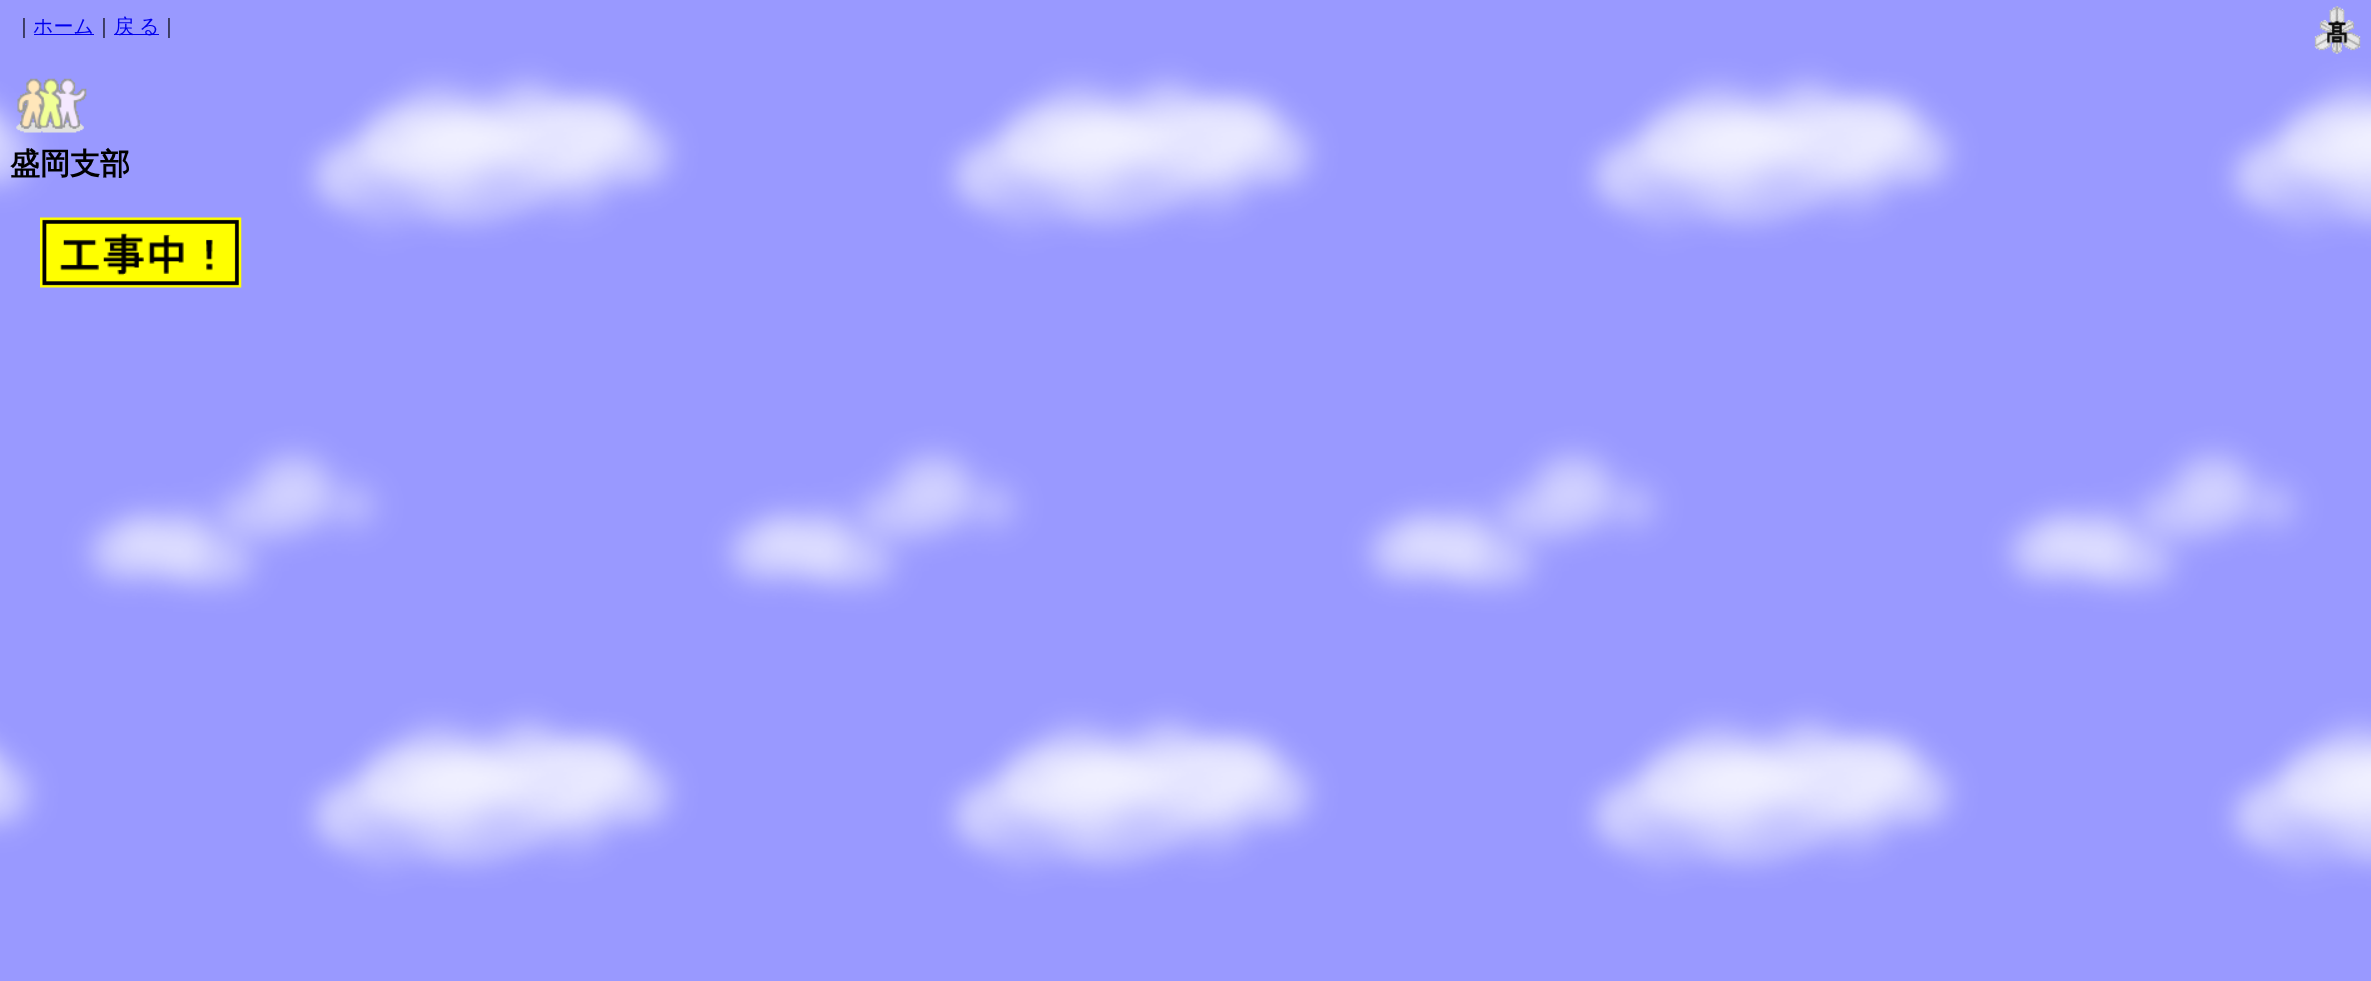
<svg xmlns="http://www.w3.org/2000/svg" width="2371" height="981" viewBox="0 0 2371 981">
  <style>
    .t1 { font: 500 20px WenQuanYi Zen Hei; fill: #000; }
    .t2 { font: 500 20px WenQuanYi Zen Hei; fill: #00e; }
    .t3 { font: bold 30px WenQuanYi Zen Hei; fill: #000; }
  </style>
  <rect width="100%" height="100%" fill="#fff"/>
  <image x="0" y="0" width="2371" height="981" href="images/1.png"/>
  <text x="14" y="33" class="t1">｜</text>
  <rect x="34" y="34" width="60" height="1" fill="#00e"/>
  <text x="33" y="33" class="t2">ホーム</text>
  <text x="94" y="33" class="t1">｜</text>
  <rect x="114" y="34" width="45" height="1" fill="#00e"/>
  <text x="114" y="33" word-spacing="-1" class="t2">戻 る</text>
  <text x="159" y="33" class="t1">｜</text>
  <image x="2314" y="6" width="47" height="48" href="images/2.png"/>
  <image x="16" y="78" width="71" height="55" href="images/3.png"/>
  <text x="10" y="174" class="t3">盛岡支部</text>
  <image x="40" y="217" width="202" height="71" href="images/4.png"/>
</svg>
